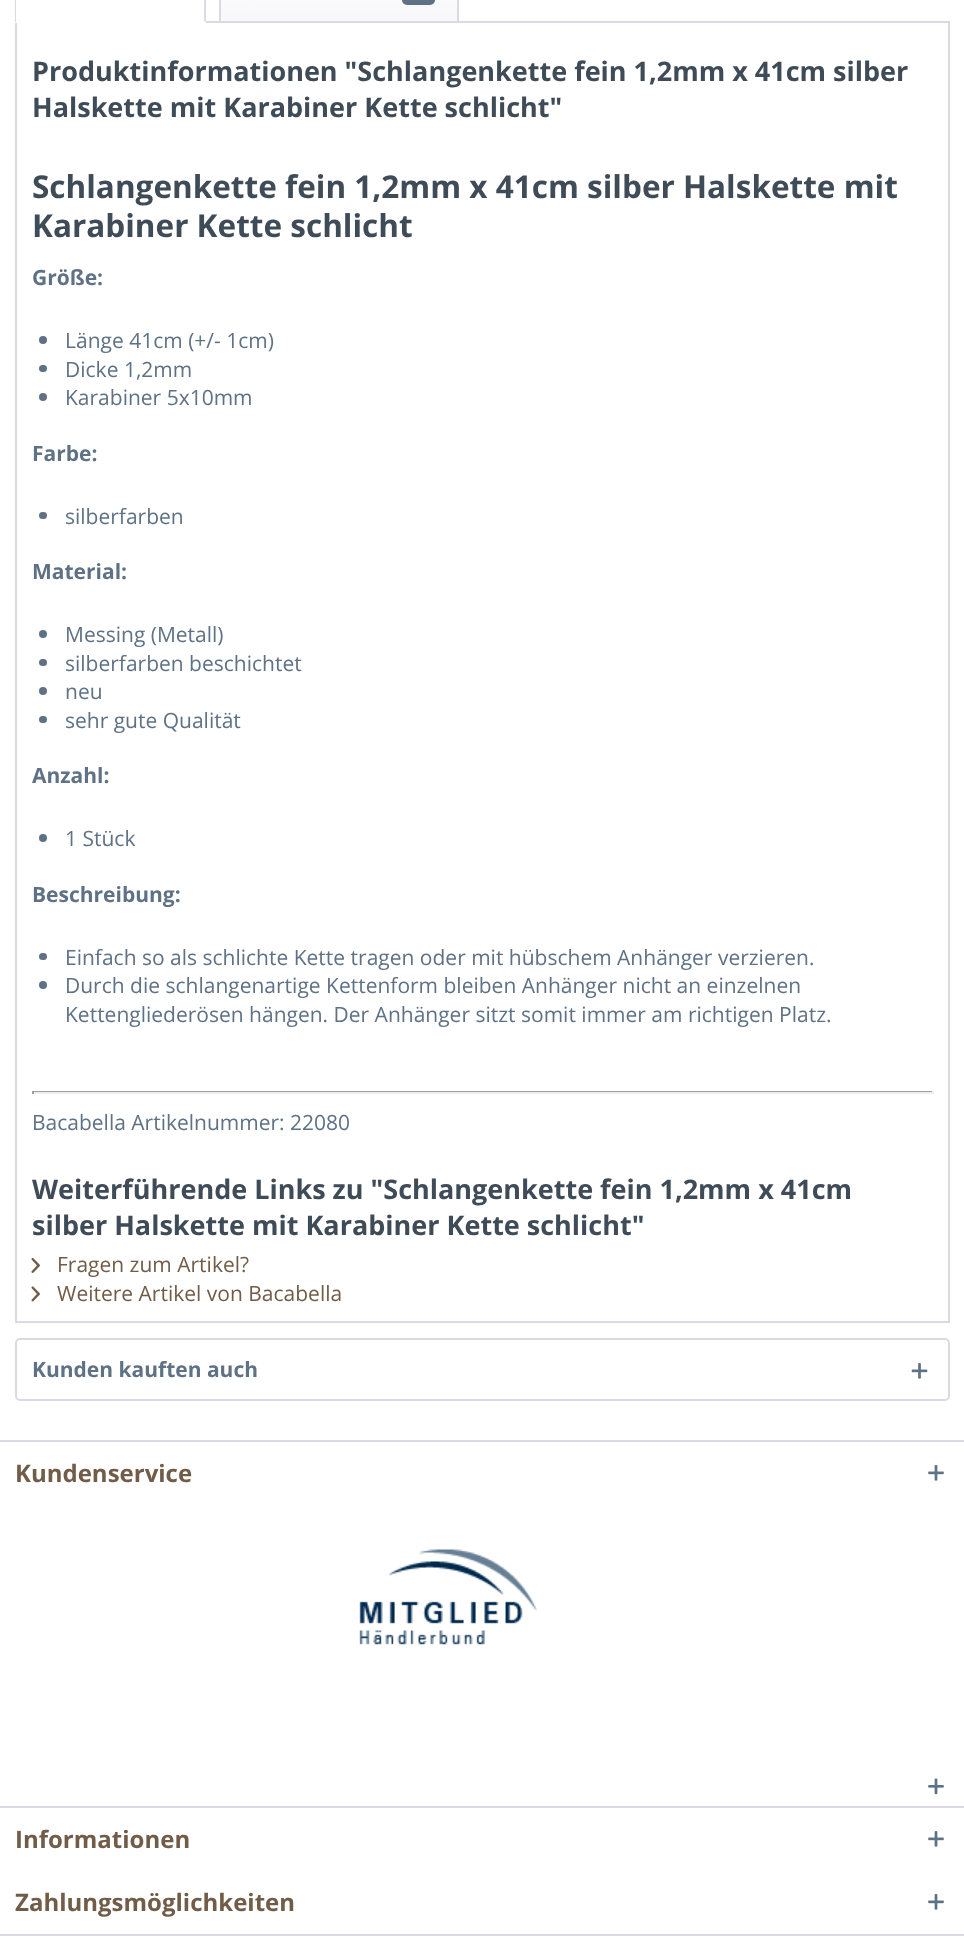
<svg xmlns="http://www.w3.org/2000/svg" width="964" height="1953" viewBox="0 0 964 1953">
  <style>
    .t1 { font: bold 27px Open Sans; fill: #3f4c58; }
    .t2 { font: bold 31.5px Open Sans; fill: #3f4c58; }
    .t3 { font: bold 21px Open Sans; fill: #5f7285; }
    .t4 { font: 21px Open Sans; fill: #5f7285; }
    .t5 { font: 21px Open Sans; fill: #715c47; }
    .t6 { font: bold 24px Open Sans; fill: #715c47; }
  </style>
  <defs>
    <linearGradient id="g1" gradientUnits="userSpaceOnUse" x1="339" y1="-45" x2="339" y2="21"><stop offset="0" stop-color="#fff"/><stop offset="1" stop-color="#f8f8fa"/></linearGradient>
  </defs>
  <rect width="100%" height="100%" fill="#fff"/>
  <rect x="16" y="22" width="933" height="1300" fill="none" stroke="#dadae5" stroke-width="2"/>
  <rect x="15" y="21" width="191" height="2" fill="#fff"/>
  <path d="M206 22L204 21C204 14 205-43 203-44L204-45L206-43Z" fill="#dadae5"/>
  <path d="M205 22H16V21H204Z" fill="#fff"/>
  <path d="M15-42V22H16V21V-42L17-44V-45C16-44 15-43 15-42Z" fill="#dadae5"/>
  <rect x="221" y="0" width="236" height="21" fill="url(#g1)"/>
  <rect x="220" y="-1" width="238" height="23" fill="none" stroke="#dadae5" stroke-width="2"/>
  <rect x="402" y="-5" width="33" height="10" rx="5" fill="#5f7285"/>
  <text x="32" y="81" class="t1">Produktinformationen "Schlangenkette fein 1,2mm x 41cm silber</text>
  <text x="32" y="117" class="t1">Halskette mit Karabiner Kette schlicht"</text>
  <text x="32" y="198" class="t2">Schlangenkette fein 1,2mm x 41cm silber Halskette mit</text>
  <text x="32" y="237" class="t2">Karabiner Kette schlicht</text>
  <text x="32" y="285" class="t3">Größe:</text>
  <circle cx="43" cy="340" r="4" fill="#5f7285"/>
  <text x="65" y="348" class="t4">Länge 41cm (+/- 1cm)</text>
  <rect x="39" y="365" width="8" height="7" rx="3.5" fill="#5f7285"/>
  <text x="65" y="377" class="t4">Dicke 1,2mm</text>
  <circle cx="43" cy="397" r="4" fill="#5f7285"/>
  <text x="65" y="405" class="t4">Karabiner 5x10mm</text>
  <text x="32" y="461" class="t3">Farbe:</text>
  <rect x="39" y="512" width="8" height="7" rx="3.5" fill="#5f7285"/>
  <text x="65" y="524" class="t4">silberfarben</text>
  <text x="32" y="579" class="t3">Material:</text>
  <circle cx="43" cy="634" r="4" fill="#5f7285"/>
  <text x="65" y="642" class="t4">Messing (Metall)</text>
  <rect x="39" y="659" width="8" height="7" rx="3.5" fill="#5f7285"/>
  <text x="65" y="671" class="t4">silberfarben beschichtet</text>
  <circle cx="43" cy="691" r="4" fill="#5f7285"/>
  <text x="65" y="699" class="t4">neu</text>
  <rect x="39" y="716" width="8" height="7" rx="3.5" fill="#5f7285"/>
  <text x="65" y="728" class="t4">sehr gute Qualität</text>
  <text x="32" y="783" class="t3">Anzahl:</text>
  <circle cx="43" cy="838" r="4" fill="#5f7285"/>
  <text x="65" y="846" class="t4">1 Stück</text>
  <text x="32" y="902" class="t3">Beschreibung:</text>
  <rect x="39" y="953" width="8" height="7" rx="3.5" fill="#5f7285"/>
  <text x="65" y="965" class="t4">Einfach so als schlichte Kette tragen oder mit hübschem Anhänger verzieren.</text>
  <circle cx="43" cy="985" r="4" fill="#5f7285"/>
  <text x="65" y="993" class="t4">Durch die schlangenartige Kettenform bleiben Anhänger nicht an einzelnen</text>
  <text x="65" y="1022" class="t4">Kettengliederösen hängen. Der Anhänger sitzt somit immer am richtigen Platz.</text>
  <rect x="32" y="1091" width="901" height="1" fill="#9f9f9f"/>
  <rect x="932" y="1091" width="2" height="3" fill="#eee"/>
  <rect x="32" y="1092" width="901" height="2" fill="#eee"/>
  <rect x="32" y="1091" width="2" height="3" fill="#9f9f9f"/>
  <text x="32" y="1130" class="t4">Bacabella Artikelnummer: 22080</text>
  <text x="32" y="1199" class="t1">Weiterführende Links zu "Schlangenkette fein 1,2mm x 41cm</text>
  <text x="32" y="1235" class="t1">silber Halskette mit Karabiner Kette schlicht"</text>
  <image x="31" y="1258" width="9" height="15" href="images/1.png"/>
  <text x="57" y="1272" class="t5">Fragen zum Artikel?</text>
  <image x="31" y="1286" width="9" height="16" href="images/2.png"/>
  <text x="57" y="1301" class="t5">Weitere Artikel von Bacabella</text>
  <rect x="16" y="1339" width="933" height="61" rx="4" fill="none" stroke="#dadae5" stroke-width="2"/>
  <text x="32" y="1377" class="t3">Kunden kauften auch</text>
  <image x="911" y="1363" width="17" height="16" href="images/3.png"/>
  <rect x="0" y="1440" width="964" height="2" fill="#dadae5"/>
  <text x="15" y="1482" class="t6">Kundenservice</text>
  <image x="928" y="1465" width="16" height="16" href="images/4.png"/>
  <image x="359" y="1549" width="178" height="96" href="images/5.png"/>
  <image x="928" y="1778" width="16" height="17" href="images/6.png"/>
  <rect x="0" y="1806" width="964" height="2" fill="#dadae5"/>
  <text x="15" y="1848" class="t6">Informationen</text>
  <image x="928" y="1831" width="16" height="16" href="images/4.png"/>
  <text x="15" y="1911" class="t6">Zahlungsmöglichkeiten</text>
  <image x="928" y="1894" width="16" height="16" href="images/4.png"/>
  <rect x="0" y="1934" width="964" height="2" fill="#dadae5"/>
</svg>
